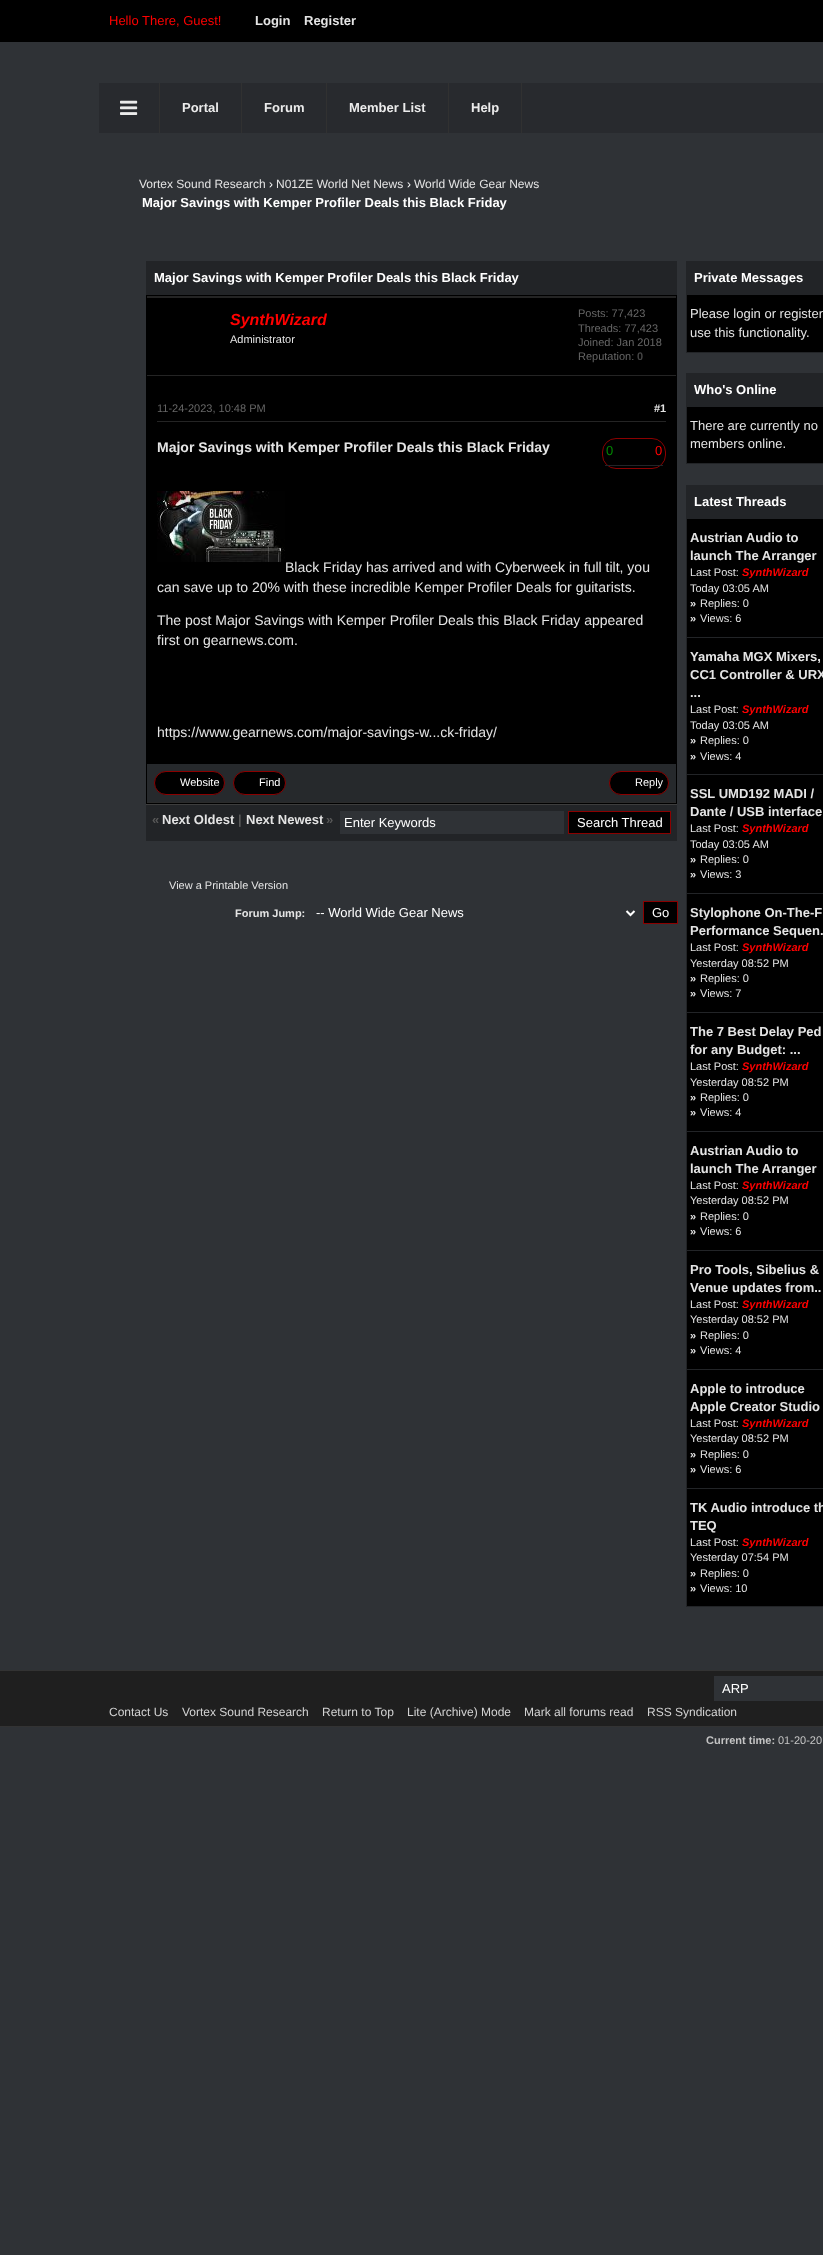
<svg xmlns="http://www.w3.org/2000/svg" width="823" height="2255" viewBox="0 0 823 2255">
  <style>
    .t1 { font: 13px Liberation Sans; fill: #f00; }
    .t2 { font: bold 13px Liberation Sans; fill: #e4e4e4; }
    .t3 { font: bold 13px Liberation Sans; fill: #ebebeb; }
    .t4 { font: 12px Liberation Sans; fill: #e4e4e4; }
    .t5 { font: 12px Liberation Sans; fill: #fff; }
    .t6 { font: bold 13px Liberation Sans; fill: #fff; }
    .t7 { font: italic bold 16px Liberation Sans; fill: #f00; }
    .t8 { font: 11px Liberation Sans; fill: #e4e4e4; }
    .t9 { font: 11px Liberation Sans; fill: #666; }
    .t10 { font: bold 11px Liberation Sans; fill: #444; }
    .t11 { font: bold 11px Liberation Sans; fill: #e4e4e4; }
    .t12 { font: bold 14px Liberation Sans; fill: #e4e4e4; }
    .t13 { font: 13px Liberation Sans; fill: #080; }
    .t14 { font: 14px Liberation Sans; fill: #e4e4e4; }
    .t15 { font: 11px Liberation Sans; fill: #fff; }
    .t16 { font: bold 13px Liberation Sans; fill: #585858; }
    .t17 { font: 13px Liberation Sans; fill: #fff; }
    .t18 { font: 13px Liberation Sans; fill: #e4e4e4; }
    .t19 { font: italic bold 11px Liberation Sans; fill: #f00; }
    .t20 { font: 12px Liberation Sans; fill: #d3d3d3; }
    .t21 { font: bold 11px Liberation Sans; fill: #c4c4c4; }
    .t22 { font: 11px Liberation Sans; fill: #c4c4c4; }
  </style>
  <rect width="100%" height="100%" fill="#2f3236"/>
  <rect x="0" y="0" width="823" height="42" fill="#000"/>
  <text x="109" y="25" class="t1">Hello There, Guest!</text>
  <text x="255" y="25" class="t2">Login</text>
  <text x="304" y="25" class="t2">Register</text>
  <rect x="99" y="83" width="724" height="50" fill="#282a2e"/>
  <rect x="159" y="83" width="1" height="50" fill="#313131"/>
  <image x="120" y="100" width="18" height="15" href="images/1.png"/>
  <rect x="241" y="83" width="1" height="50" fill="#313131"/>
  <text x="182" y="112" class="t3">Portal</text>
  <rect x="326" y="83" width="1" height="50" fill="#313131"/>
  <text x="264" y="112" class="t3">Forum</text>
  <rect x="448" y="83" width="1" height="50" fill="#313131"/>
  <text x="349" y="112" class="t3">Member List</text>
  <rect x="521" y="83" width="1" height="50" fill="#313131"/>
  <text x="471" y="112" class="t3">Help</text>
  <text x="139" y="188" class="t4">Vortex Sound Research</text>
  <text x="269" y="188" class="t5">›</text>
  <text x="276" y="188" class="t4">N01ZE World Net News</text>
  <text x="407" y="188" class="t5">›</text>
  <text x="414" y="188" class="t4">World Wide Gear News</text>
  <text x="142" y="207" class="t6">Major Savings with Kemper Profiler Deals this Black Friday</text>
  <rect x="146" y="261" width="531" height="34" fill="#222427"/>
  <text x="154" y="282" class="t6">Major Savings with Kemper Profiler Deals this Black Friday</text>
  <rect x="146.5" y="295.5" width="530" height="508" fill="none" stroke="#000"/>
  <rect x="147" y="298" width="529" height="77" fill="#000"/>
  <rect x="147" y="296" width="529" height="2" fill="#242424"/>
  <rect x="147" y="375" width="529" height="1" fill="#242424"/>
  <text x="230" y="325" class="t7">SynthWizard</text>
  <text x="230" y="343" class="t8">Administrator</text>
  <text x="578" y="317" class="t9">Posts: 77,423</text>
  <text x="578" y="332" class="t9">Threads: 77,423</text>
  <text x="578" y="346" class="t9">Joined: Jan 2018</text>
  <text x="578" y="360" class="t9">Reputation:</text>
  <text x="637" y="360" class="t10">0</text>
  <rect x="147" y="376" width="529" height="388" fill="#000"/>
  <rect x="157" y="421" width="509" height="1" fill="#242424"/>
  <text x="157" y="412" class="t9">11-24-2023, 10:48 PM</text>
  <text x="654" y="412" class="t11">#1</text>
  <text x="157" y="452" class="t12">Major Savings with Kemper Profiler Deals this Black Friday</text>
  <rect x="602.5" y="438.5" width="63" height="30" rx="13.5" fill="none" stroke="#8b0000"/>
  <text x="606" y="455" class="t13">0</text>
  <text x="655" y="455" class="t1">0</text>
  <rect x="605" y="465" width="58" height="1" fill="#222427"/>
  <image x="157" y="491" width="128" height="71" href="images/2.png"/>
  <text x="285" y="572" class="t14">Black Friday has arrived and with Cyberweek in full tilt, you</text>
  <text x="157" y="592" class="t14">can save up to 20% with these incredible Kemper Profiler Deals for guitarists.</text>
  <text x="157" y="625" class="t14">The post Major Savings with Kemper Profiler Deals this Black Friday appeared</text>
  <text x="157" y="645" class="t14">first on gearnews.com.</text>
  <text x="157" y="737" class="t14">https://www.gearnews.com/major-savings-w...ck-friday/</text>
  <rect x="147" y="764" width="529" height="38" fill="#26292c"/>
  <rect x="147" y="802" width="529" height="1" fill="#2b2b2b"/>
  <rect x="154.5" y="771.5" width="70" height="23" rx="11.5" fill="#000" stroke="#8b0000"/>
  <text x="180" y="786" class="t15">Website</text>
  <rect x="233.5" y="771.5" width="52" height="23" rx="11.5" fill="#000" stroke="#8b0000"/>
  <text x="259" y="786" class="t15">Find</text>
  <rect x="609.5" y="771.5" width="59" height="23" rx="11.5" fill="#000" stroke="#8b0000"/>
  <text x="635" y="786" class="t15">Reply</text>
  <rect x="146" y="805" width="531" height="36" fill="#222427"/>
  <rect x="146" y="804" width="531" height="1" fill="#3d3d3d"/>
  <text x="152" y="824" class="t16">«</text>
  <text x="162" y="824" class="t2">Next Oldest</text>
  <text x="238" y="824" class="t16">|</text>
  <text x="246" y="824" class="t2">Next Newest</text>
  <text x="326" y="824" class="t16">»</text>
  <rect x="340" y="811" width="224" height="23" fill="#2f3236"/>
  <text x="344" y="827" class="t17">Enter Keywords</text>
  <rect x="568.5" y="811.5" width="102" height="22" fill="#000" stroke="#8b0000"/>
  <text x="577" y="827" class="t17">Search Thread</text>
  <text x="169" y="889" class="t8">View a Printable Version</text>
  <text x="235" y="917" class="t11">Forum Jump:</text>
  <path d="M626.5 911L630.5 915L634.5 911" fill="none" stroke="#fff" stroke-width="2"/>
  <text x="316" y="917" class="t17">-- World Wide Gear News</text>
  <rect x="643.5" y="901.5" width="34" height="22" fill="#000" stroke="#8b0000"/>
  <text x="652" y="917" class="t17">Go</text>
  <rect x="686" y="261" width="137" height="34" fill="#222427"/>
  <text x="694" y="282" class="t6">Private Messages</text>
  <rect x="687" y="295" width="136" height="57" fill="#000"/>
  <rect x="686" y="352" width="137" height="1" fill="#222427"/>
  <rect x="686" y="295" width="1" height="58" fill="#222427"/>
  <text x="690" y="318" class="t18">Please login or register</text>
  <text x="690" y="337" class="t18">use this functionality.</text>
  <rect x="686" y="373" width="137" height="34" fill="#222427"/>
  <text x="694" y="394" class="t6">Who's Online</text>
  <rect x="687" y="407" width="136" height="56" fill="#000"/>
  <rect x="686" y="463" width="137" height="1" fill="#222427"/>
  <rect x="686" y="407" width="1" height="57" fill="#222427"/>
  <text x="690" y="430" class="t18">There are currently no</text>
  <text x="690" y="448" class="t18">members online.</text>
  <rect x="686" y="485" width="137" height="34" fill="#222427"/>
  <text x="694" y="506" class="t6">Latest Threads</text>
  <rect x="687" y="519" width="136" height="118" fill="#000"/>
  <rect x="686" y="637" width="137" height="1" fill="#222427"/>
  <rect x="686" y="519" width="1" height="119" fill="#222427"/>
  <text x="690" y="542" class="t2">Austrian Audio to</text>
  <text x="690" y="560" class="t2">launch The Arranger</text>
  <text x="690" y="576" class="t8">Last Post:</text>
  <text x="742" y="576" class="t19">SynthWizard</text>
  <text x="690" y="592" class="t8">Today 03:05 AM</text>
  <text x="690" y="607" class="t11">»</text>
  <text x="700" y="607" class="t8">Replies: 0</text>
  <text x="690" y="622" class="t11">»</text>
  <text x="700" y="622" class="t8">Views: 6</text>
  <rect x="687" y="638" width="136" height="136" fill="#000"/>
  <rect x="686" y="774" width="137" height="1" fill="#222427"/>
  <rect x="686" y="638" width="1" height="137" fill="#222427"/>
  <text x="690" y="661" class="t2">Yamaha MGX Mixers,</text>
  <text x="690" y="679" class="t2">CC1 Controller &amp; URX</text>
  <text x="690" y="697" class="t2">...</text>
  <text x="690" y="713" class="t8">Last Post:</text>
  <text x="742" y="713" class="t19">SynthWizard</text>
  <text x="690" y="729" class="t8">Today 03:05 AM</text>
  <text x="690" y="744" class="t11">»</text>
  <text x="700" y="744" class="t8">Replies: 0</text>
  <text x="690" y="760" class="t11">»</text>
  <text x="700" y="760" class="t8">Views: 4</text>
  <rect x="687" y="775" width="136" height="118" fill="#000"/>
  <rect x="686" y="893" width="137" height="1" fill="#222427"/>
  <rect x="686" y="775" width="1" height="119" fill="#222427"/>
  <text x="690" y="798" class="t2">SSL UMD192 MADI /</text>
  <text x="690" y="816" class="t2">Dante / USB interface</text>
  <text x="690" y="832" class="t8">Last Post:</text>
  <text x="742" y="832" class="t19">SynthWizard</text>
  <text x="690" y="848" class="t8">Today 03:05 AM</text>
  <text x="690" y="863" class="t11">»</text>
  <text x="700" y="863" class="t8">Replies: 0</text>
  <text x="690" y="878" class="t11">»</text>
  <text x="700" y="878" class="t8">Views: 3</text>
  <rect x="687" y="894" width="136" height="118" fill="#000"/>
  <rect x="686" y="1012" width="137" height="1" fill="#222427"/>
  <rect x="686" y="894" width="1" height="119" fill="#222427"/>
  <text x="690" y="917" class="t2">Stylophone On-The-F</text>
  <text x="690" y="935" class="t2">Performance Sequen.</text>
  <text x="690" y="951" class="t8">Last Post:</text>
  <text x="742" y="951" class="t19">SynthWizard</text>
  <text x="690" y="967" class="t8">Yesterday 08:52 PM</text>
  <text x="690" y="982" class="t11">»</text>
  <text x="700" y="982" class="t8">Replies: 0</text>
  <text x="690" y="997" class="t11">»</text>
  <text x="700" y="997" class="t8">Views: 7</text>
  <rect x="687" y="1013" width="136" height="118" fill="#000"/>
  <rect x="686" y="1131" width="137" height="1" fill="#222427"/>
  <rect x="686" y="1013" width="1" height="119" fill="#222427"/>
  <text x="690" y="1036" class="t2">The 7 Best Delay Ped</text>
  <text x="690" y="1054" class="t2">for any Budget: ...</text>
  <text x="690" y="1070" class="t8">Last Post:</text>
  <text x="742" y="1070" class="t19">SynthWizard</text>
  <text x="690" y="1086" class="t8">Yesterday 08:52 PM</text>
  <text x="690" y="1101" class="t11">»</text>
  <text x="700" y="1101" class="t8">Replies: 0</text>
  <text x="690" y="1116" class="t11">»</text>
  <text x="700" y="1116" class="t8">Views: 4</text>
  <rect x="687" y="1132" width="136" height="118" fill="#000"/>
  <rect x="686" y="1250" width="137" height="1" fill="#222427"/>
  <rect x="686" y="1132" width="1" height="119" fill="#222427"/>
  <text x="690" y="1155" class="t2">Austrian Audio to</text>
  <text x="690" y="1173" class="t2">launch The Arranger</text>
  <text x="690" y="1189" class="t8">Last Post:</text>
  <text x="742" y="1189" class="t19">SynthWizard</text>
  <text x="690" y="1204" class="t8">Yesterday 08:52 PM</text>
  <text x="690" y="1220" class="t11">»</text>
  <text x="700" y="1220" class="t8">Replies: 0</text>
  <text x="690" y="1235" class="t11">»</text>
  <text x="700" y="1235" class="t8">Views: 6</text>
  <rect x="687" y="1251" width="136" height="118" fill="#000"/>
  <rect x="686" y="1369" width="137" height="1" fill="#222427"/>
  <rect x="686" y="1251" width="1" height="119" fill="#222427"/>
  <text x="690" y="1274" class="t2">Pro Tools, Sibelius &amp;</text>
  <text x="690" y="1292" class="t2">Venue updates from..</text>
  <text x="690" y="1308" class="t8">Last Post:</text>
  <text x="742" y="1308" class="t19">SynthWizard</text>
  <text x="690" y="1323" class="t8">Yesterday 08:52 PM</text>
  <text x="690" y="1339" class="t11">»</text>
  <text x="700" y="1339" class="t8">Replies: 0</text>
  <text x="690" y="1354" class="t11">»</text>
  <text x="700" y="1354" class="t8">Views: 4</text>
  <rect x="687" y="1370" width="136" height="118" fill="#000"/>
  <rect x="686" y="1488" width="137" height="1" fill="#222427"/>
  <rect x="686" y="1370" width="1" height="119" fill="#222427"/>
  <text x="690" y="1393" class="t2">Apple to introduce</text>
  <text x="690" y="1411" class="t2">Apple Creator Studio</text>
  <text x="690" y="1427" class="t8">Last Post:</text>
  <text x="742" y="1427" class="t19">SynthWizard</text>
  <text x="690" y="1442" class="t8">Yesterday 08:52 PM</text>
  <text x="690" y="1458" class="t11">»</text>
  <text x="700" y="1458" class="t8">Replies: 0</text>
  <text x="690" y="1473" class="t11">»</text>
  <text x="700" y="1473" class="t8">Views: 6</text>
  <rect x="687" y="1489" width="136" height="117" fill="#000"/>
  <rect x="686" y="1606" width="137" height="1" fill="#222427"/>
  <rect x="686" y="1489" width="1" height="118" fill="#222427"/>
  <text x="690" y="1512" class="t2">TK Audio introduce th</text>
  <text x="690" y="1530" class="t2">TEQ</text>
  <text x="690" y="1546" class="t8">Last Post:</text>
  <text x="742" y="1546" class="t19">SynthWizard</text>
  <text x="690" y="1561" class="t8">Yesterday 07:54 PM</text>
  <text x="690" y="1577" class="t11">»</text>
  <text x="700" y="1577" class="t8">Replies: 0</text>
  <text x="690" y="1592" class="t11">»</text>
  <text x="700" y="1592" class="t8">Views: 10</text>
  <rect x="0" y="1671" width="823" height="55" fill="#1f1f1f"/>
  <rect x="0" y="1670" width="823" height="1" fill="#333"/>
  <rect x="0" y="1726" width="823" height="1" fill="#333"/>
  <rect x="714" y="1676" width="109" height="25" fill="#2f3236"/>
  <text x="722" y="1693" class="t17">ARP</text>
  <text x="109" y="1716" class="t20">Contact Us</text>
  <text x="182" y="1716" class="t20">Vortex Sound Research</text>
  <text x="322" y="1716" class="t20">Return to Top</text>
  <text x="407" y="1716" class="t20">Lite (Archive) Mode</text>
  <text x="524" y="1716" class="t20">Mark all forums read</text>
  <text x="647" y="1716" class="t20">RSS Syndication</text>
  <text x="706" y="1744" class="t21">Current time:</text>
  <text x="778" y="1744" class="t22">01-20-20</text>
</svg>
